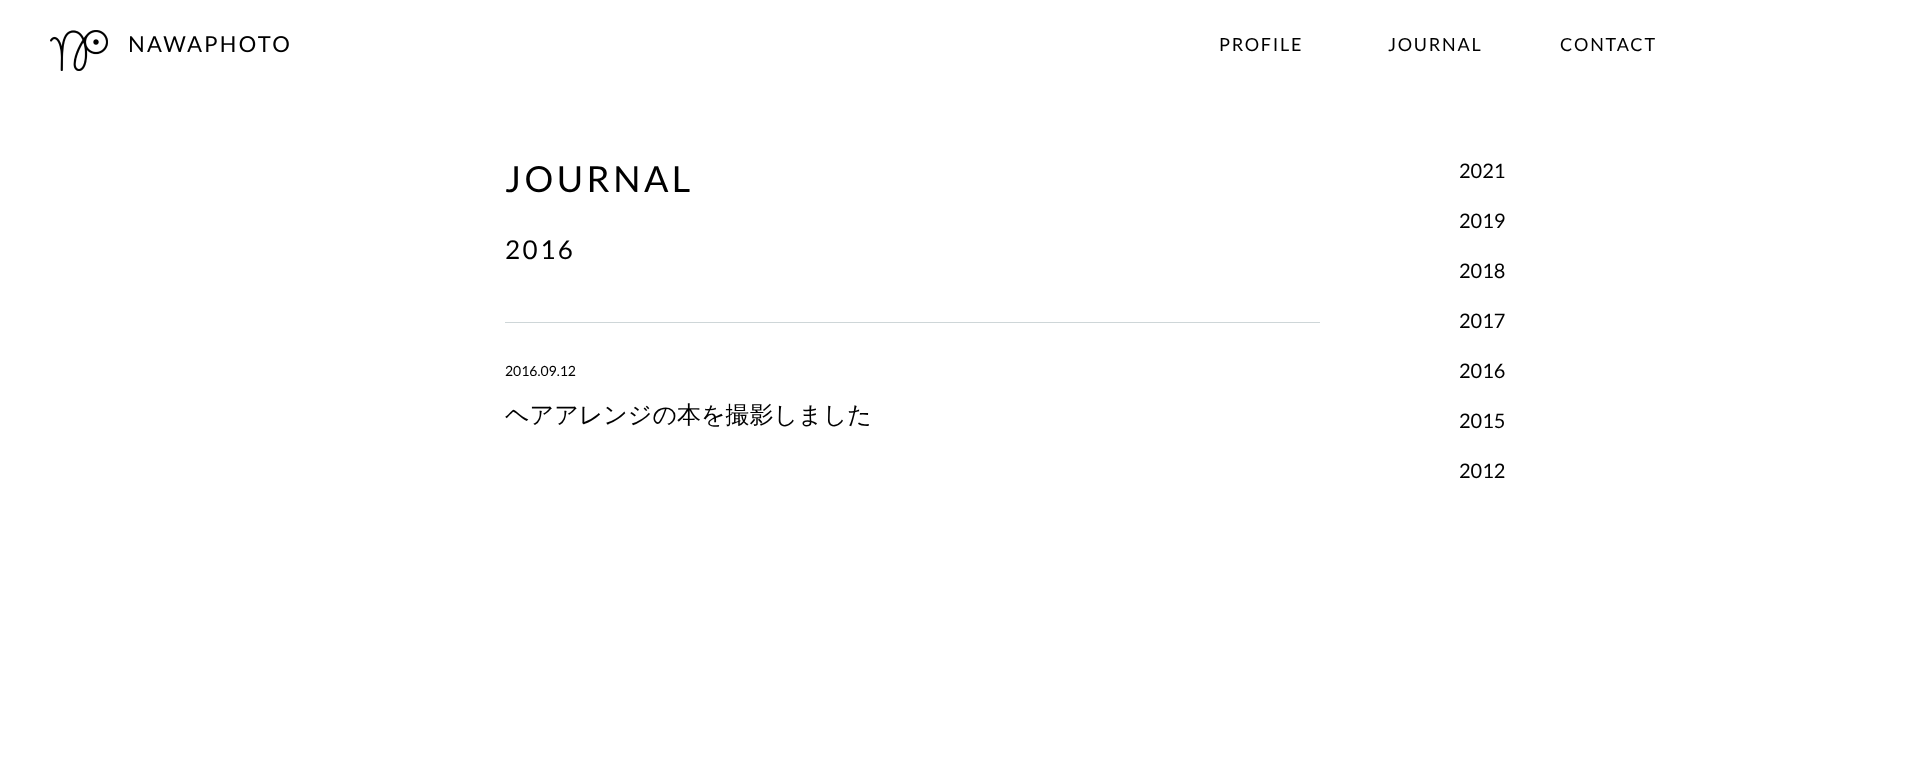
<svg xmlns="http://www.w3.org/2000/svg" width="1905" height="781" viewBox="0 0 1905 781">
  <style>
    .t1 { font: 18px Lato; letter-spacing: 1.75px; fill: #000; }
    .t2 { font: 36px Lato; letter-spacing: 3.5px; fill: #000; }
    .t3 { font: 26px Lato; letter-spacing: 2.5px; fill: #000; }
    .t4 { font: 14px Lato; fill: #000; }
    .t5 { font: 500 24px WenQuanYi Zen Hei; fill: #000; }
    .t6 { font: 20px Lato; fill: #000; }
  </style>
  <rect width="100%" height="100%" fill="#fff"/>
  <image x="50" y="30" width="239" height="41" href="images/1.png"/>
  <text x="1219" y="51" class="t1">PROFILE</text>
  <text x="1388" y="51" class="t1">JOURNAL</text>
  <text x="1560" y="51" class="t1">CONTACT</text>
  <text x="505" y="192" class="t2">JOURNAL</text>
  <text x="505" y="259" class="t3">2016</text>
  <rect x="505" y="322" width="815" height="1" fill="#ced6d8"/>
  <text x="505" y="376" class="t4">2016.09.12</text>
  <text x="505" y="423" class="t5">ヘアアレンジの本を撮影しました</text>
  <text x="1459" y="178" class="t6">2021</text>
  <text x="1459" y="228" class="t6">2019</text>
  <text x="1459" y="278" class="t6">2018</text>
  <text x="1459" y="328" class="t6">2017</text>
  <text x="1459" y="378" class="t6">2016</text>
  <text x="1459" y="428" class="t6">2015</text>
  <text x="1459" y="478" class="t6">2012</text>
</svg>
